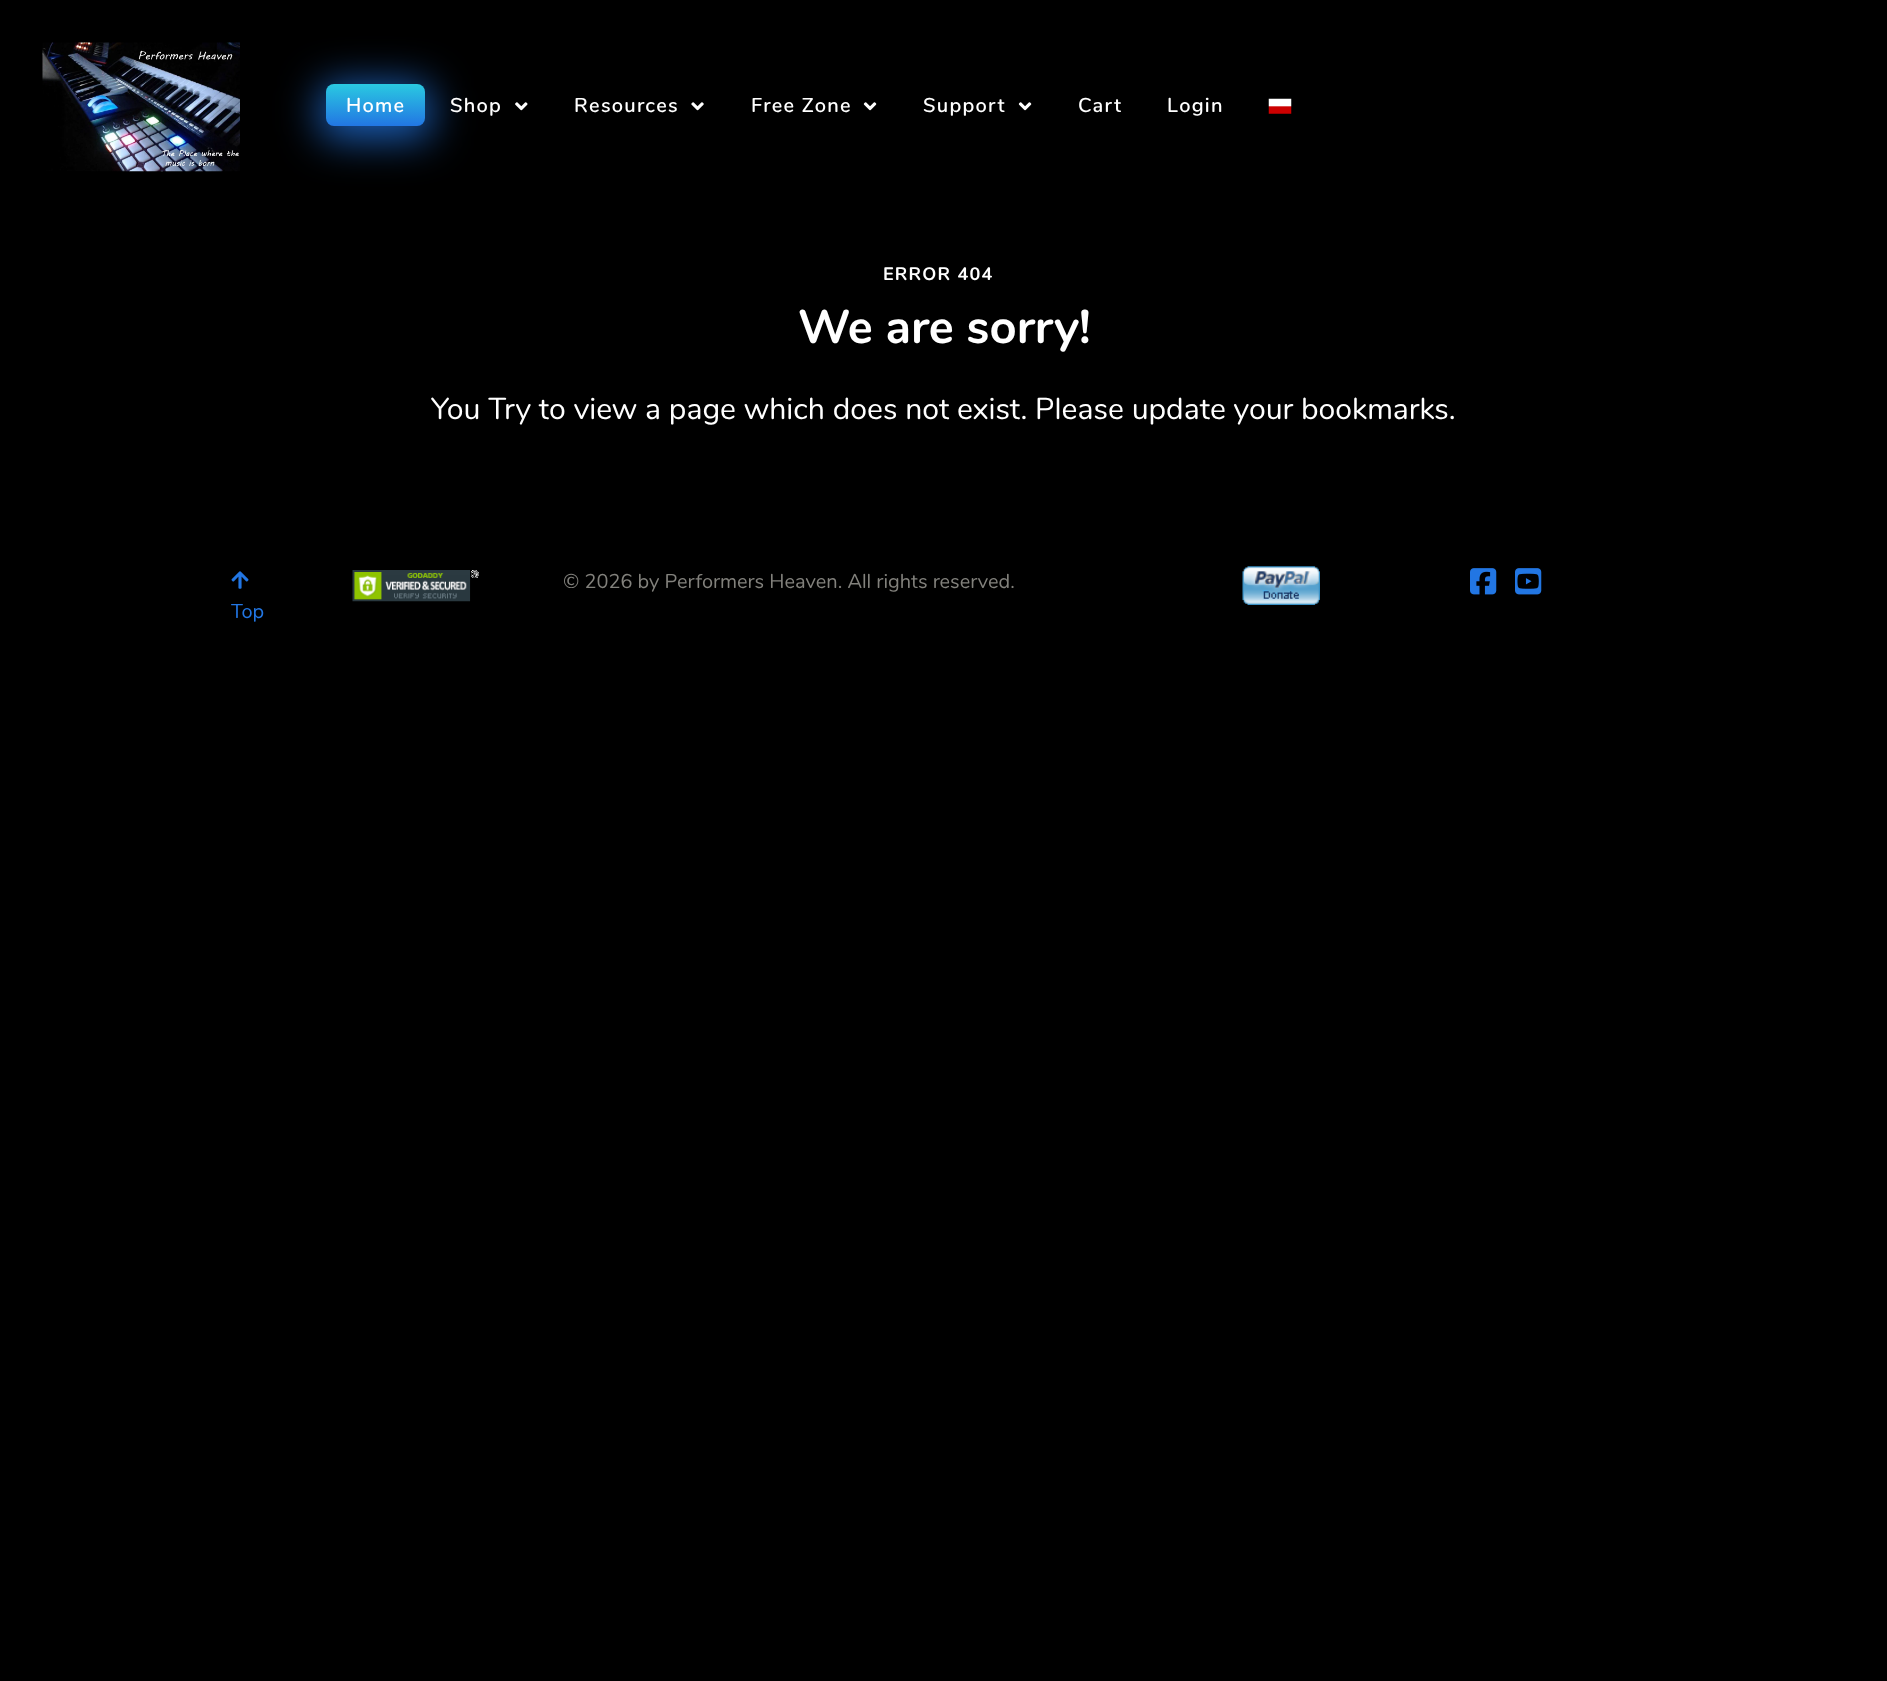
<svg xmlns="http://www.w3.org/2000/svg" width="1887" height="1681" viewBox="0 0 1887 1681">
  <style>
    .t1 { font: 600 20px Nunito; letter-spacing: 1.25px; fill: #fff; }
    .t2 { font: bold 18px Nunito; letter-spacing: 1.25px; fill: #fff; }
    .t3 { font: bold 47.25px Nunito; fill: #fff; }
    .t4 { font: 30.2px Nunito; fill: #fff; }
    .t5 { font: 20px Nunito; fill: #82817c; }
    .t6 { font: 20px Nunito; fill: #2276e3; }
  </style>
  <defs>
    <linearGradient id="g1" gradientUnits="userSpaceOnUse" x1="376" y1="84" x2="376" y2="126"><stop offset="0" stop-color="#2ac9e1"/><stop offset="1" stop-color="#2276e3"/></linearGradient>
  </defs>
  <rect width="100%" height="100%" fill="#000"/>
  <image x="42" y="42" width="198" height="130" href="images/1.png"/>
  <rect x="320" y="84" width="111" height="55" rx="14" fill="#2276e3cc" filter="blur(20px)"/>
  <rect x="326" y="84" width="99" height="42" rx="8" fill="url(#g1)"/>
  <text x="346" y="112" class="t1">Home</text>
  <text x="450" y="112" class="t1">Shop</text>
  <image x="515" y="102" width="13" height="9" href="images/2.png"/>
  <text x="574" y="112" class="t1">Resources</text>
  <image x="691" y="102" width="13" height="9" href="images/3.png"/>
  <text x="751" y="112" class="t1">Free Zone</text>
  <image x="863" y="102" width="14" height="9" href="images/4.png"/>
  <text x="923" y="112" class="t1">Support</text>
  <image x="1018" y="102" width="14" height="9" href="images/4.png"/>
  <text x="1078" y="112" class="t1">Cart</text>
  <text x="1167" y="112" class="t1">Login</text>
  <image x="1268" y="98" width="24" height="16" href="images/5.png"/>
  <text x="883" y="280" class="t2">ERROR 404</text>
  <text x="798" y="343" class="t3">We are sorry!</text>
  <text x="431" y="419" class="t4">You Try to view a page which does not exist. Please update your bookmarks.</text>
  <image x="352" y="570" width="127" height="32" href="images/6.png"/>
  <text x="563" y="588" class="t5">© 2026 by Performers Heaven. All rights reserved.</text>
  <image x="1242" y="566" width="78" height="39" href="images/7.png"/>
  <image x="1470" y="568" width="27" height="27" href="images/8.png"/>
  <image x="1515" y="568" width="27" height="27" href="images/9.png"/>
  <image x="231" y="571" width="18" height="18" href="images/10.png"/>
  <text x="231" y="618" class="t6">Top</text>
</svg>
